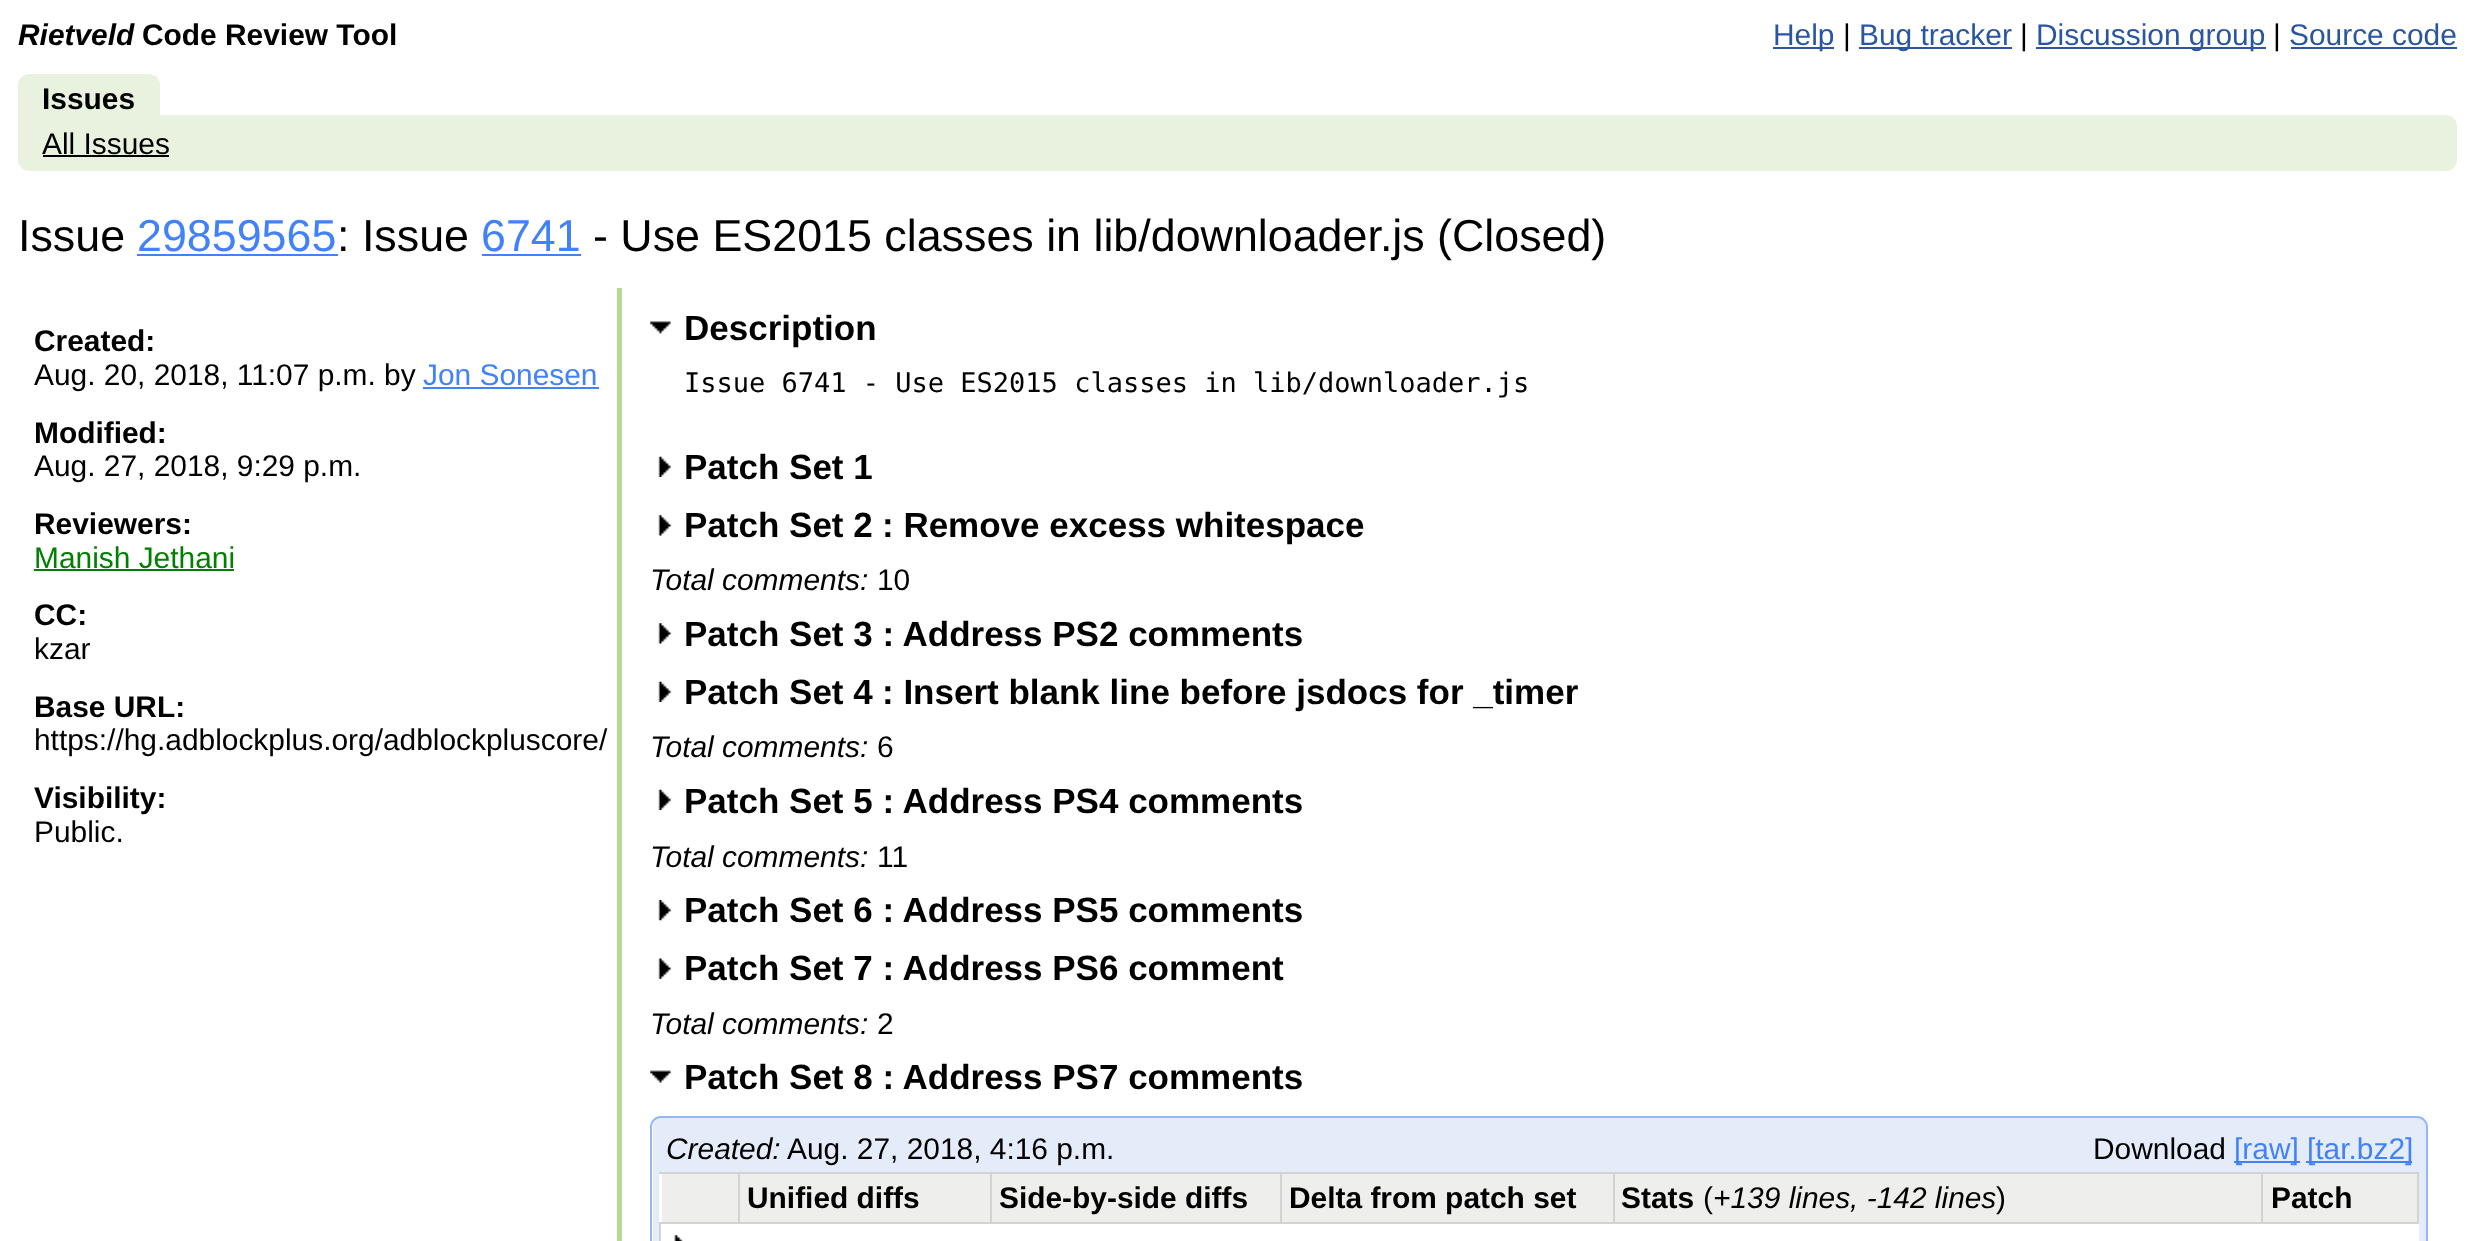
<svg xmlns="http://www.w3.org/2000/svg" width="2473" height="1241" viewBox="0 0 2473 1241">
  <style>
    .t1 { font: italic bold 29.9px Liberation Sans; fill: #000; }
    .t2 { font: bold 29.9px Liberation Sans; fill: #000; }
    .t3 { font: 29.9px Liberation Sans; fill: #2a55a3; }
    .t4 { font: 29.9px Liberation Sans; fill: #000; }
    .t5 { font: 44.8px Liberation Sans; fill: #000; }
    .t6 { font: 44.8px Liberation Sans; fill: #4182fa; }
    .t7 { font: 29.9px Liberation Sans; fill: #4182fa; }
    .t8 { font: 29.9px Liberation Sans; fill: #008000; }
    .t9 { font: bold 35px Liberation Sans; fill: #000; }
    .t10 { font: 27px DejaVu Sans Mono; fill: #000; }
    .t11 { font: italic 29.9px Liberation Sans; fill: #000; }
  </style>
  <rect width="100%" height="100%" fill="#fff"/>
  <text x="18" y="45" class="t1">Rietveld</text>
  <text x="142" y="45" class="t2">Code Review Tool</text>
  <rect x="1773" y="47" width="61" height="2" fill="#2a55a3"/>
  <text x="1773" y="45" class="t3">Help</text>
  <text x="1843" y="45" class="t4">|</text>
  <rect x="1859" y="47" width="153" height="2" fill="#2a55a3"/>
  <text x="1859" y="45" class="t3">Bug tracker</text>
  <text x="2020" y="45" class="t4">|</text>
  <rect x="2036" y="47" width="230" height="2" fill="#2a55a3"/>
  <text x="2036" y="45" class="t3">Discussion group</text>
  <text x="2273" y="45" class="t4">|</text>
  <text x="2289" y="45" class="t3">Source code</text>
  <rect x="2291" y="47" width="166" height="2" fill="#2a55a3"/>
  <path d="M29 74H149C155 74 160 79 160 85V115H18V85C18 79 23 74 29 74Z" fill="#e9f2df"/>
  <text x="42" y="109" class="t2">Issues</text>
  <path d="M18 115H2446C2452 115 2457 120 2457 126V160C2457 166 2452 171 2446 171H29C23 171 18 166 18 160Z" fill="#e9f2df"/>
  <text x="42" y="154" class="t4">All Issues</text>
  <rect x="43" y="155" width="126" height="2" fill="#000"/>
  <text x="18" y="251" class="t5">Issue</text>
  <text x="137" y="251" class="t6">29859565</text>
  <rect x="137" y="254" width="201" height="2" fill="#4182fa"/>
  <text x="337" y="251" class="t5">: Issue</text>
  <text x="481" y="251" class="t6">6741</text>
  <rect x="482" y="254" width="99" height="2" fill="#4182fa"/>
  <text x="593" y="251" class="t5">- Use ES2015 classes in lib/downloader.js</text>
  <text x="1437" y="251" class="t5">(Closed)</text>
  <rect x="617" y="288" width="5" height="953" fill="#b7d993"/>
  <text x="34" y="351" class="t2">Created:</text>
  <text x="34" y="385" class="t4">Aug. 20, 2018, 11:07 p.m. by</text>
  <text x="423" y="385" class="t7">Jon Sonesen</text>
  <rect x="423" y="387" width="176" height="2" fill="#4182fa"/>
  <text x="34" y="443" class="t2">Modified:</text>
  <text x="34" y="476" class="t4">Aug. 27, 2018, 9:29 p.m.</text>
  <text x="34" y="534" class="t2">Reviewers:</text>
  <text x="34" y="568" class="t8">Manish Jethani</text>
  <rect x="34" y="569" width="200" height="2" fill="#008000"/>
  <text x="34" y="625" class="t2">CC:</text>
  <text x="34" y="659" class="t4">kzar</text>
  <text x="34" y="717" class="t2">Base URL:</text>
  <text x="34" y="750" class="t4">https://hg.adblockplus.org/adblockpluscore/</text>
  <text x="34" y="808" class="t2">Visibility:</text>
  <text x="34" y="842" class="t4">Public.</text>
  <image x="650" y="321" width="22" height="13" href="images/1.png"/>
  <text x="684" y="340" class="t9">Description</text>
  <text x="684" y="392" class="t10">Issue 6741 - Use ES2015 classes in lib/downloader.js</text>
  <image x="658" y="456" width="14" height="21" href="images/2.png"/>
  <text x="684" y="479" class="t9">Patch Set 1</text>
  <image x="658" y="515" width="14" height="21" href="images/3.png"/>
  <text x="684" y="537" class="t9">Patch Set 2</text>
  <text x="882" y="537" class="t9">: Remove excess whitespace</text>
  <text x="650" y="590" class="t11">Total comments:</text>
  <text x="877" y="590" class="t4">10</text>
  <image x="658" y="623" width="14" height="21" href="images/3.png"/>
  <text x="684" y="646" class="t9">Patch Set 3 : Address PS2 comments</text>
  <image x="658" y="681" width="14" height="21" href="images/2.png"/>
  <text x="684" y="704" class="t9">Patch Set 4</text>
  <text x="882" y="704" class="t9">: Insert blank line before jsdocs for _timer</text>
  <text x="650" y="757" class="t11">Total comments:</text>
  <text x="877" y="757" class="t4">6</text>
  <image x="658" y="789" width="14" height="21" href="images/2.png"/>
  <text x="684" y="813" class="t9">Patch Set 5 : Address PS4 comments</text>
  <text x="650" y="867" class="t11">Total comments:</text>
  <text x="877" y="867" class="t4">11</text>
  <image x="658" y="900" width="14" height="21" href="images/4.png"/>
  <text x="684" y="922" class="t9">Patch Set 6 : Address PS5 comments</text>
  <image x="658" y="958" width="14" height="21" href="images/5.png"/>
  <text x="684" y="980" class="t9">Patch Set 7 : Address PS6 comment</text>
  <text x="650" y="1034" class="t11">Total comments:</text>
  <text x="877" y="1034" class="t4">2</text>
  <image x="650" y="1070" width="22" height="13" href="images/6.png"/>
  <text x="684" y="1089" class="t9">Patch Set 8 : Address PS7 comments</text>
  <path d="M662 1118H2417C2422 1118 2426 1122 2426 1127V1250H653V1127C653 1122 657 1118 662 1118Z" fill="#e5ecf9"/>
  <path d="M661 1117H2417C2422.5 1117 2427 1121.5 2427 1127V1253H651V1127C651 1121.5 655.5 1117 661 1117Z" fill="none" stroke="#93b7fa" stroke-width="2"/>
  <text x="666" y="1159" class="t11">Created:</text>
  <text x="787" y="1159" class="t4">Aug. 27, 2018, 4:16 p.m.</text>
  <text x="2093" y="1159" class="t4">Download</text>
  <rect x="2234" y="1161" width="66" height="2" fill="#4182fa"/>
  <text x="2234" y="1159" class="t7">[raw]</text>
  <rect x="2306" y="1161" width="106" height="2" fill="#4182fa"/>
  <text x="2307" y="1159" class="t7">[tar.bz2]</text>
  <rect x="659" y="1174" width="1760" height="67" fill="#fff"/>
  <rect x="659" y="1222" width="1760" height="2" fill="#d3d3d3"/>
  <rect x="662" y="1174" width="76" height="48" fill="#eeeeec"/>
  <rect x="659" y="1172" width="1760" height="2" fill="#d3d3d3"/>
  <rect x="738" y="1172" width="2" height="52" fill="#d3d3d3"/>
  <rect x="740" y="1174" width="250" height="48" fill="#eeeeec"/>
  <rect x="990" y="1172" width="2" height="52" fill="#d3d3d3"/>
  <text x="747" y="1208" class="t2">Unified diffs</text>
  <rect x="992" y="1174" width="621" height="48" fill="#eeeeec"/>
  <rect x="1280" y="1172" width="2" height="52" fill="#d3d3d3"/>
  <text x="999" y="1208" class="t2">Side-by-side diffs</text>
  <rect x="1613" y="1172" width="2" height="52" fill="#d3d3d3"/>
  <text x="1289" y="1208" class="t2">Delta from patch set</text>
  <rect x="1615" y="1174" width="802" height="48" fill="#eeeeec"/>
  <rect x="2261" y="1172" width="2" height="52" fill="#d3d3d3"/>
  <text x="1621" y="1208" class="t2">Stats</text>
  <text x="1703" y="1208" class="t4">(</text>
  <text x="1713" y="1208" class="t11">+139 lines, -142 lines</text>
  <text x="1996" y="1208" class="t4">)</text>
  <rect x="2417" y="1172" width="2" height="52" fill="#d3d3d3"/>
  <text x="2271" y="1208" class="t2">Patch</text>
  <rect x="659" y="1222" width="2" height="19" fill="#d3d3d3"/>
  <image x="674" y="1235" width="9" height="6" href="images/7.png"/>
</svg>
